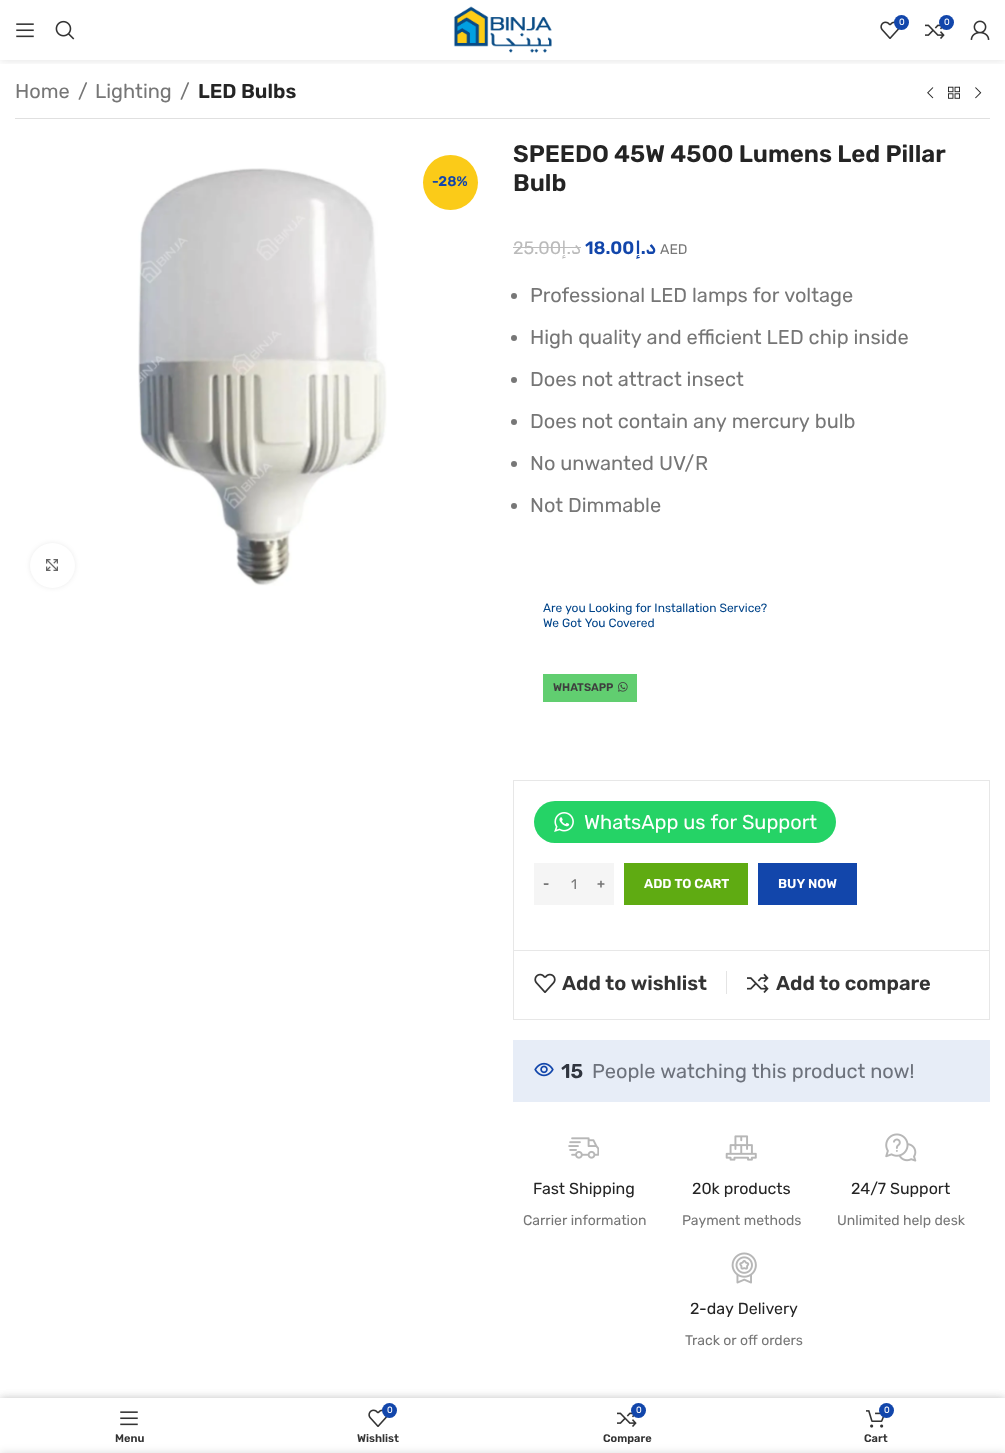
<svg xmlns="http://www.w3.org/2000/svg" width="1005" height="1453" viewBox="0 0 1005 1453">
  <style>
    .t1 { font: 9px Rubik; fill: #fff; }
    .t2 { font: 20px Rubik; fill: #767676; }
    .t3 { font: 600 20px Rubik; fill: #242424; }
    .t4 { font: 600 14px Rubik; fill: #1246ab; }
    .t5 { font: 600 24px Rubik; fill: #242424; }
    .t6 { font: 18px Rubik; fill: #bbb; }
    .t7 { font: 18px Rubik; direction: rtl; fill: #bbb; }
    .t8 { font: 600 18px Rubik; fill: #1246ab; }
    .t9 { font: 600 18px Rubik; direction: rtl; fill: #1246ab; }
    .t10 { font: 14px Rubik; fill: #767676; }
    .t11 { font: 12px Rubik; fill: #004489; }
    .t12 { font: 600 11px Rubik; fill: #3e3e3e; }
    .t13 { font: 20px Rubik; fill: #fff; }
    .t14 { font: 600 13px Rubik; fill: #767676; }
    .t15 { font: 600 13px Rubik; fill: #fff; }
    .t16 { font: 600 20px Rubik; fill: #333; }
    .t17 { font: 600 20px Rubik; fill: #30353f; }
    .t18 { font: 20px Rubik; fill: #6d727c; }
    .t19 { font: 16px Rubik; fill: #242424; }
    .t20 { font: 600 11px Rubik; fill: #333; }
  </style>
  <defs>
    <clipPath id="clip1"><rect x="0" y="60" width="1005" height="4"/></clipPath>
  </defs>
  <rect width="100%" height="100%" fill="#fff"/>
  <rect x="513" y="1040" width="477" height="62" fill="#e7edf7"/>
  <g clip-path="url(#clip1)">
    <rect x="0" y="1" width="1005" height="60" fill="#0000001a" filter="blur(4px)"/>
  </g>
  <image x="16" y="23" width="18" height="15" href="images/1.png"/>
  <image x="55" y="20" width="20" height="20" href="images/2.png"/>
  <image x="453" y="6" width="99" height="47" href="images/3.png"/>
  <image x="880" y="21" width="20" height="18" href="images/4.png"/>
  <circle cx="901.5" cy="22.5" r="7.5" fill="#1246ab"/>
  <text x="899" y="25" class="t1">0</text>
  <image x="925" y="24" width="20" height="15" href="images/5.png"/>
  <circle cx="946.5" cy="22.5" r="7.5" fill="#1246ab"/>
  <text x="944" y="25" class="t1">0</text>
  <image x="970" y="20" width="20" height="20" href="images/6.png"/>
  <text x="15" y="98" class="t2">Home</text>
  <text x="78" y="98" class="t2">/</text>
  <text x="95" y="98" class="t2">Lighting</text>
  <text x="180" y="98" class="t2">/</text>
  <text x="198" y="98" class="t3">LED Bulbs</text>
  <image x="927" y="87" width="7" height="12" href="images/7.png"/>
  <image x="948" y="86" width="12" height="13" href="images/8.png"/>
  <image x="975" y="87" width="7" height="12" href="images/9.png"/>
  <rect x="15" y="118" width="975" height="1" fill="#e0e0e0"/>
  <image x="138" y="168" width="249" height="418" href="images/10.png"/>
  <circle cx="450.5" cy="182.5" r="27.5" fill="#fbcb18"/>
  <text x="432" y="186" class="t4">-28%</text>
  <rect x="30" y="543" width="45" height="45" rx="22.5" fill="#00000014" filter="blur(2.5px)"/>
  <circle cx="52.5" cy="565.5" r="22.5" fill="#fff"/>
  <image x="46" y="559" width="12" height="12" href="images/11.png"/>
  <text x="513" y="162" class="t5">SPEEDO 45W 4500 Lumens Led Pillar</text>
  <text x="513" y="191" class="t5">Bulb</text>
  <text x="513" y="254" class="t6">25.00</text>
  <rect x="561" y="247" width="20" height="1" fill="#bbb"/>
  <rect x="513" y="247" width="48" height="1" fill="#bbb"/>
  <text x="581" y="254" class="t7">د.إ</text>
  <text x="585" y="254" class="t8">18.00</text>
  <text x="656" y="254" class="t9">د.إ</text>
  <text x="660" y="254" class="t10">AED</text>
  <circle cx="514" cy="296" r="3" fill="#777"/>
  <text x="530" y="302" class="t2">Professional LED lamps for voltage</text>
  <circle cx="514" cy="338" r="3" fill="#777"/>
  <text x="530" y="344" class="t2">High quality and efficient LED chip inside</text>
  <circle cx="514" cy="380" r="3" fill="#777"/>
  <text x="530" y="386" class="t2">Does not attract insect</text>
  <circle cx="514" cy="422" r="3" fill="#777"/>
  <text x="530" y="428" class="t2">Does not contain any mercury bulb</text>
  <circle cx="514" cy="464" r="3" fill="#777"/>
  <text x="530" y="470" class="t2">No unwanted UV/R</text>
  <circle cx="514" cy="506" r="3" fill="#777"/>
  <text x="530" y="512" class="t2">Not Dimmable</text>
  <text x="543" y="612" class="t11">Are you Looking for Installation Service?</text>
  <text x="543" y="627" class="t11">We Got You Covered</text>
  <rect x="543" y="674" width="94" height="28" fill="#61ce70"/>
  <text x="553" y="691" class="t12">WHATSAPP</text>
  <image x="618" y="682" width="10" height="10" href="images/12.png"/>
  <rect x="513.5" y="780.5" width="476" height="170" fill="none" stroke="#e7e7e7"/>
  <rect x="534" y="801" width="302" height="42" rx="21" fill="#25d366"/>
  <image x="554" y="812" width="20" height="20" href="images/13.png"/>
  <text x="584" y="829" class="t13">WhatsApp us for Support</text>
  <rect x="534" y="863" width="80" height="42" fill="#f5f5f5"/>
  <text x="543" y="888" class="t14">-</text>
  <text x="571" y="889" class="t10">1</text>
  <text x="597" y="888" class="t14">+</text>
  <rect x="624" y="863" width="124" height="42" fill="#5fab12"/>
  <text x="644" y="888" class="t15">ADD TO CART</text>
  <rect x="758" y="863" width="99" height="42" fill="#1246ab"/>
  <text x="778" y="888" class="t15">BUY NOW</text>
  <path d="M990 951V1020L989 1019V951Z" fill="#e7e7e7"/>
  <path d="M990 1020H513L514 1019H989Z" fill="#1010101a"/>
  <path d="M513 1020V951H514V1019Z" fill="#1010101a"/>
  <rect x="726" y="971" width="1" height="23" fill="#e4e4e4"/>
  <image x="534" y="973" width="22" height="20" href="images/14.png"/>
  <text x="562" y="990" class="t16">Add to wishlist</text>
  <image x="747" y="973" width="22" height="20" href="images/15.png"/>
  <text x="776" y="990" class="t16">Add to compare</text>
  <image x="534" y="1062" width="20" height="15" href="images/16.png"/>
  <text x="561" y="1078" class="t17">15</text>
  <text x="592" y="1078" class="t18">People watching this product now!</text>
  <image x="568" y="1137" width="31" height="22" href="images/17.png"/>
  <text x="533" y="1194" class="t19">Fast Shipping</text>
  <text x="523" y="1225" class="t10">Carrier information</text>
  <image x="725" y="1135" width="32" height="26" href="images/18.png"/>
  <text x="692" y="1194" class="t19">20k products</text>
  <text x="682" y="1225" class="t10">Payment methods</text>
  <image x="885" y="1133" width="32" height="29" href="images/19.png"/>
  <text x="851" y="1194" class="t19">24/7 Support</text>
  <text x="837" y="1225" class="t10">Unlimited help desk</text>
  <image x="731" y="1252" width="26" height="32" href="images/20.png"/>
  <text x="690" y="1314" class="t19">2-day Delivery</text>
  <text x="685" y="1345" class="t10">Track or off orders</text>
  <rect x="0" y="1398" width="1005" height="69" fill="#0000001f" filter="blur(4.5px)"/>
  <rect x="0" y="1398" width="1005" height="55" fill="#0000001f" filter="blur(4.5px)"/>
  <rect x="0" y="1398" width="1005" height="55" fill="#fff"/>
  <image x="120" y="1411" width="18" height="15" href="images/1.png"/>
  <text x="115" y="1442" class="t20">Menu</text>
  <image x="368" y="1409" width="20" height="18" href="images/4.png"/>
  <circle cx="389.5" cy="1410.5" r="7.5" fill="#1246ab"/>
  <text x="387" y="1413" class="t1">0</text>
  <text x="357" y="1442" class="t20">Wishlist</text>
  <image x="617" y="1412" width="20" height="15" href="images/5.png"/>
  <circle cx="638.5" cy="1410.5" r="7.5" fill="#1246ab"/>
  <text x="636" y="1413" class="t1">0</text>
  <text x="603" y="1442" class="t20">Compare</text>
  <image x="866" y="1410" width="19" height="18" href="images/21.png"/>
  <circle cx="886.5" cy="1410.5" r="7.5" fill="#1246ab"/>
  <text x="884" y="1413" class="t1">0</text>
  <text x="864" y="1442" class="t20">Cart</text>
  <rect x="0" y="1453" width="1005" height="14" fill="#00000024" filter="blur(4.5px)"/>
</svg>
